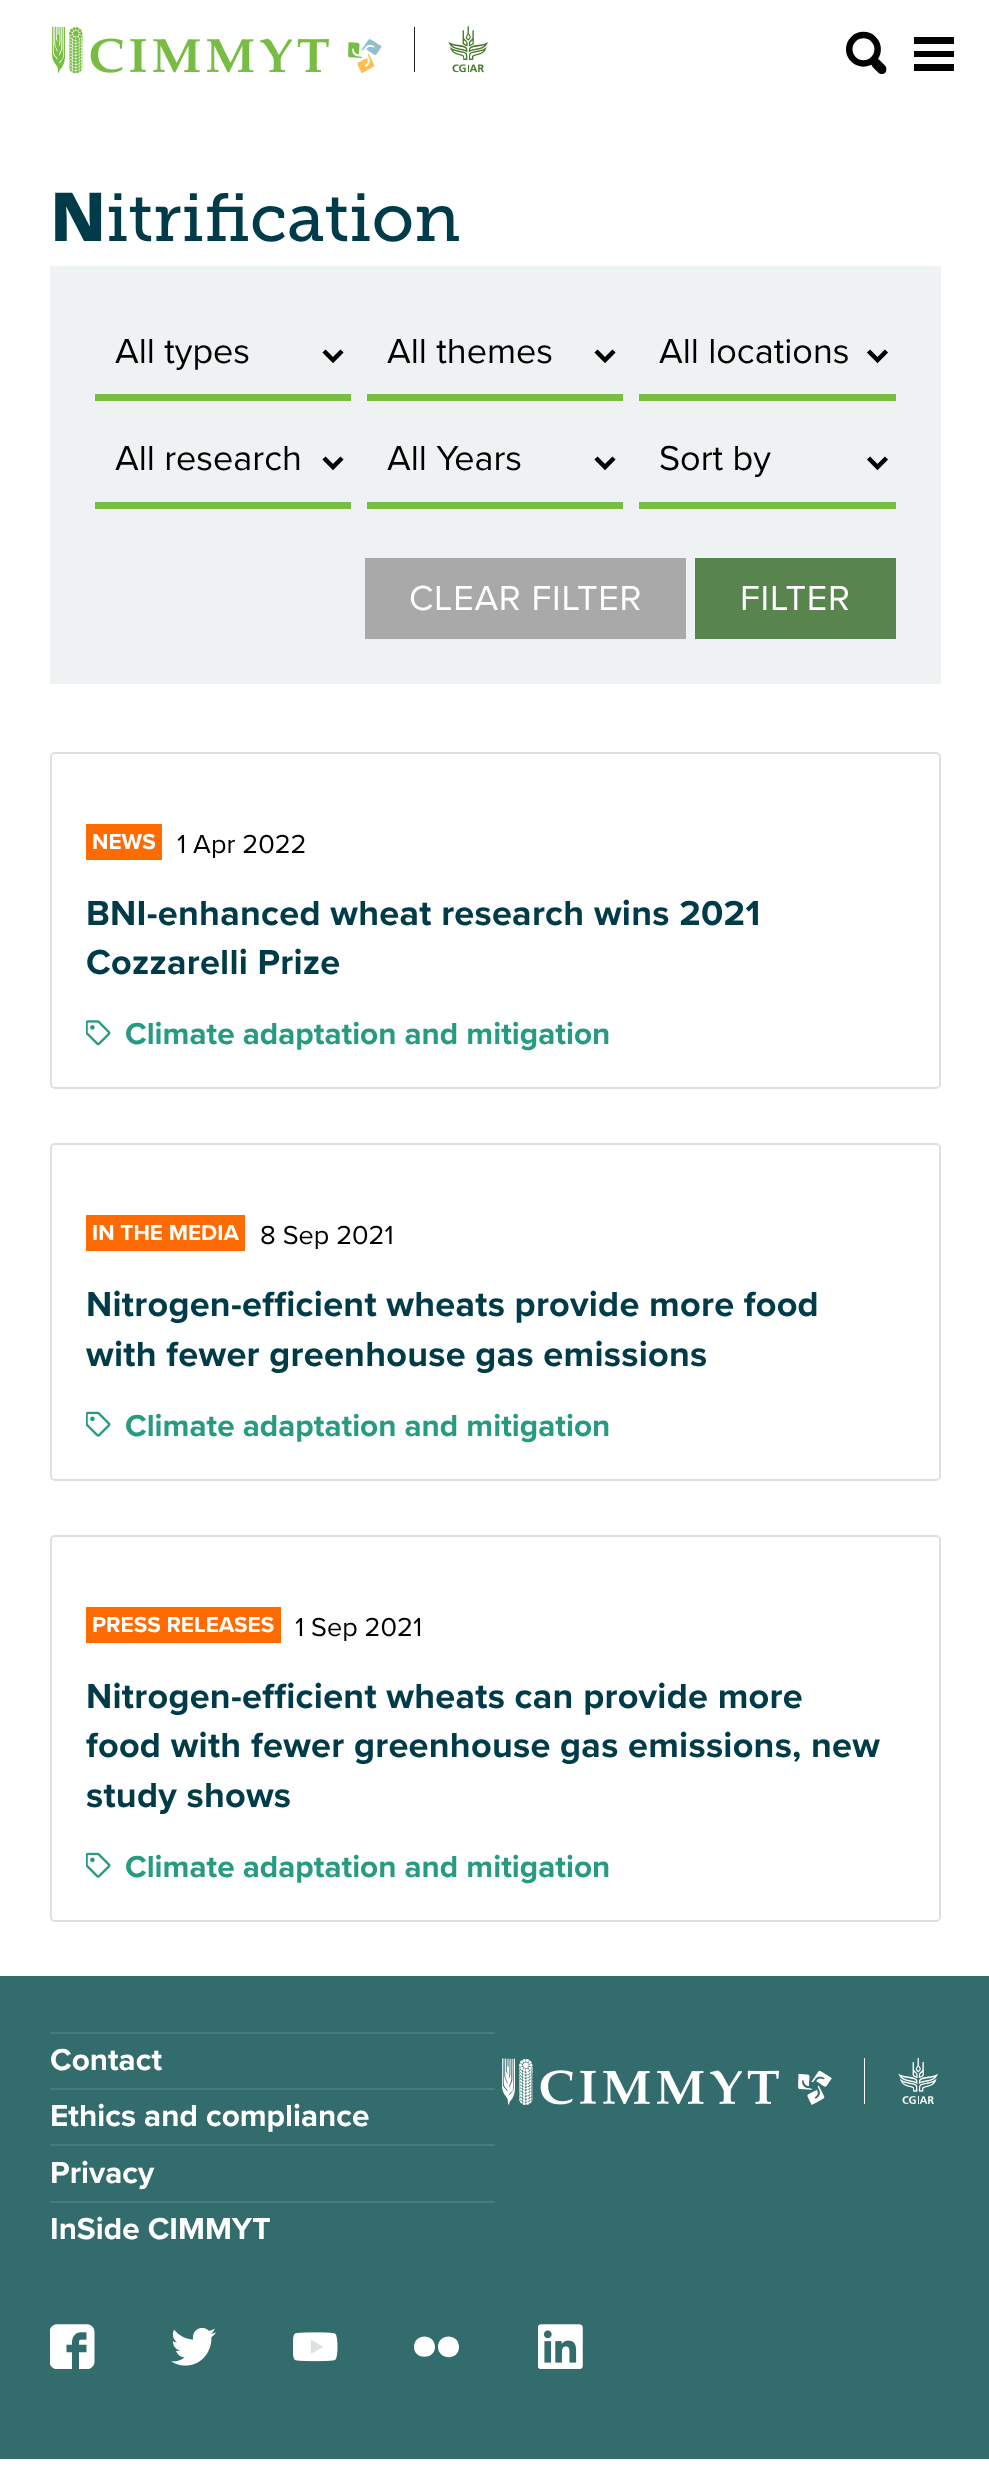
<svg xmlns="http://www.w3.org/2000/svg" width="989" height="2481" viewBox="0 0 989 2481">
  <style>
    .t1 { font: 900 67.5px Noto Sans; fill: #003b49; }
    .t2 { font: 67.5px 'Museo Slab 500'; fill: #003b49; }
    .t3 { font: 36px Proxima Nova; fill: #000; }
    .t4 { font: 36px Proxima Nova; letter-spacing: 0.75px; fill: #fff; }
    .t5 { font: bold 22.5px Proxima Nova; fill: #fff; }
    .t6 { font: 27px Proxima Nova; fill: #000; }
    .t7 { font: bold 36px Proxima Nova; letter-spacing: 0.25px; fill: #003b49; }
    .t8 { font: bold 31.5px Proxima Nova; fill: #279a82; }
    .t9 { font: bold 31.5px Proxima Nova; fill: #fff; }
  </style>
  <defs>
    <clipPath id="clip1"><rect x="659" y="329" width="189" height="49"/></clipPath>
  </defs>
  <rect width="100%" height="100%" fill="#fff"/>
  <image x="52" y="26" width="436" height="48" href="images/1.png"/>
  <image x="846" y="31" width="41" height="43" href="images/2.png"/>
  <path d="M914 37H954V44H914ZM914 51H954V57H914ZM914 64H954V71H914Z" fill="#030100" fill-rule="evenodd"/>
  <text x="50" y="241" class="t1">N</text>
  <text x="106" y="241" class="t2">itrification</text>
  <rect x="50" y="266" width="891" height="418" fill="#eff2f3"/>
  <rect x="95" y="394" width="256" height="7" fill="#77bd43"/>
  <path d="M324 351L333 360L342 351" fill="none" stroke="#000" stroke-width="4.5"/>
  <text x="115" y="363" class="t3">All types</text>
  <rect x="367" y="394" width="256" height="7" fill="#77bd43"/>
  <path d="M596 351L605 360L614 351" fill="none" stroke="#000" stroke-width="4.5"/>
  <text x="387" y="363" class="t3">All themes</text>
  <rect x="639" y="394" width="257" height="7" fill="#77bd43"/>
  <path d="M868.5 351L877.5 360L886.5 351" fill="none" stroke="#000" stroke-width="4.5"/>
  <g clip-path="url(#clip1)">
    <text x="659" y="363" class="t3">All locations</text>
  </g>
  <rect x="95" y="502" width="256" height="7" fill="#77bd43"/>
  <path d="M324 458L333 467L342 458" fill="none" stroke="#000" stroke-width="4.5"/>
  <text x="115" y="470" class="t3">All research</text>
  <rect x="367" y="502" width="256" height="7" fill="#77bd43"/>
  <path d="M596 458L605 467L614 458" fill="none" stroke="#000" stroke-width="4.5"/>
  <text x="387" y="470" class="t3">All Years</text>
  <rect x="639" y="502" width="257" height="7" fill="#77bd43"/>
  <path d="M868.5 458L877.5 467L886.5 458" fill="none" stroke="#000" stroke-width="4.5"/>
  <text x="659" y="470" class="t3">Sort by</text>
  <rect x="365" y="558" width="321" height="81" fill="#a9a9a9"/>
  <text x="409" y="610" class="t4">CLEAR FILTER</text>
  <rect x="695" y="558" width="201" height="81" fill="#58854e"/>
  <text x="740" y="610" class="t4">FILTER</text>
  <rect x="51" y="753" width="889" height="335" rx="4" fill="none" stroke="#dbe0e2" stroke-width="2"/>
  <rect x="86" y="824" width="76" height="36" fill="#ff6b00"/>
  <text x="92" y="849" class="t5">NEWS</text>
  <text x="177" y="853" class="t6">1 Apr 2022</text>
  <text x="86" y="925" class="t7">BNI-enhanced wheat research wins 2021</text>
  <text x="86" y="974" class="t7">Cozzarelli Prize</text>
  <image x="86" y="1020" width="25" height="26" href="images/3.png"/>
  <text x="125" y="1044" class="t8">Climate adaptation and mitigation</text>
  <rect x="51" y="1144" width="889" height="336" rx="4" fill="none" stroke="#dbe0e2" stroke-width="2"/>
  <rect x="86" y="1215" width="159" height="36" fill="#ff6b00"/>
  <text x="92" y="1240" class="t5">IN THE MEDIA</text>
  <text x="260" y="1244" class="t6">8 Sep 2021</text>
  <text x="86" y="1316" class="t7">Nitrogen-efficient wheats provide more food</text>
  <text x="86" y="1366" class="t7">with fewer greenhouse gas emissions</text>
  <image x="86" y="1411" width="25" height="26" href="images/4.png"/>
  <text x="125" y="1436" class="t8">Climate adaptation and mitigation</text>
  <rect x="51" y="1536" width="889" height="385" rx="4" fill="none" stroke="#dbe0e2" stroke-width="2"/>
  <rect x="86" y="1607" width="195" height="36" fill="#ff6b00"/>
  <text x="92" y="1632" class="t5">PRESS RELEASES</text>
  <text x="295" y="1636" class="t6">1 Sep 2021</text>
  <text x="86" y="1708" class="t7">Nitrogen-efficient wheats can provide more</text>
  <text x="86" y="1757" class="t7">food with fewer greenhouse gas emissions, new</text>
  <text x="86" y="1807" class="t7">study shows</text>
  <image x="86" y="1852" width="25" height="26" href="images/4.png"/>
  <text x="125" y="1877" class="t8">Climate adaptation and mitigation</text>
  <rect x="0" y="1976" width="989" height="483" fill="#336c6d"/>
  <rect x="50" y="2032" width="445" height="2" fill="#477b7c"/>
  <text x="50" y="2070" class="t9">Contact</text>
  <rect x="50" y="2088" width="445" height="2" fill="#477b7c"/>
  <text x="50" y="2126" class="t9">Ethics and compliance</text>
  <rect x="50" y="2144" width="445" height="2" fill="#477b7c"/>
  <text x="50" y="2183" class="t9">Privacy</text>
  <rect x="50" y="2201" width="445" height="2" fill="#477b7c"/>
  <text x="50" y="2239" class="t9">InSide CIMMYT</text>
  <image x="502" y="2057" width="436" height="48" href="images/5.png"/>
  <image x="50" y="2324" width="45" height="45" href="images/6.png"/>
  <image x="171" y="2327" width="45" height="39" href="images/7.png"/>
  <image x="293" y="2332" width="45" height="30" href="images/8.png"/>
  <path d="M414 2347C414 2360 435 2360 435 2347C435 2333 414 2333 414 2347ZM438 2347C438 2360 459 2361 459 2347C459 2333 438 2333 438 2347Z" fill="#fff"/>
  <image x="538" y="2324" width="45" height="45" href="images/9.png"/>
</svg>
